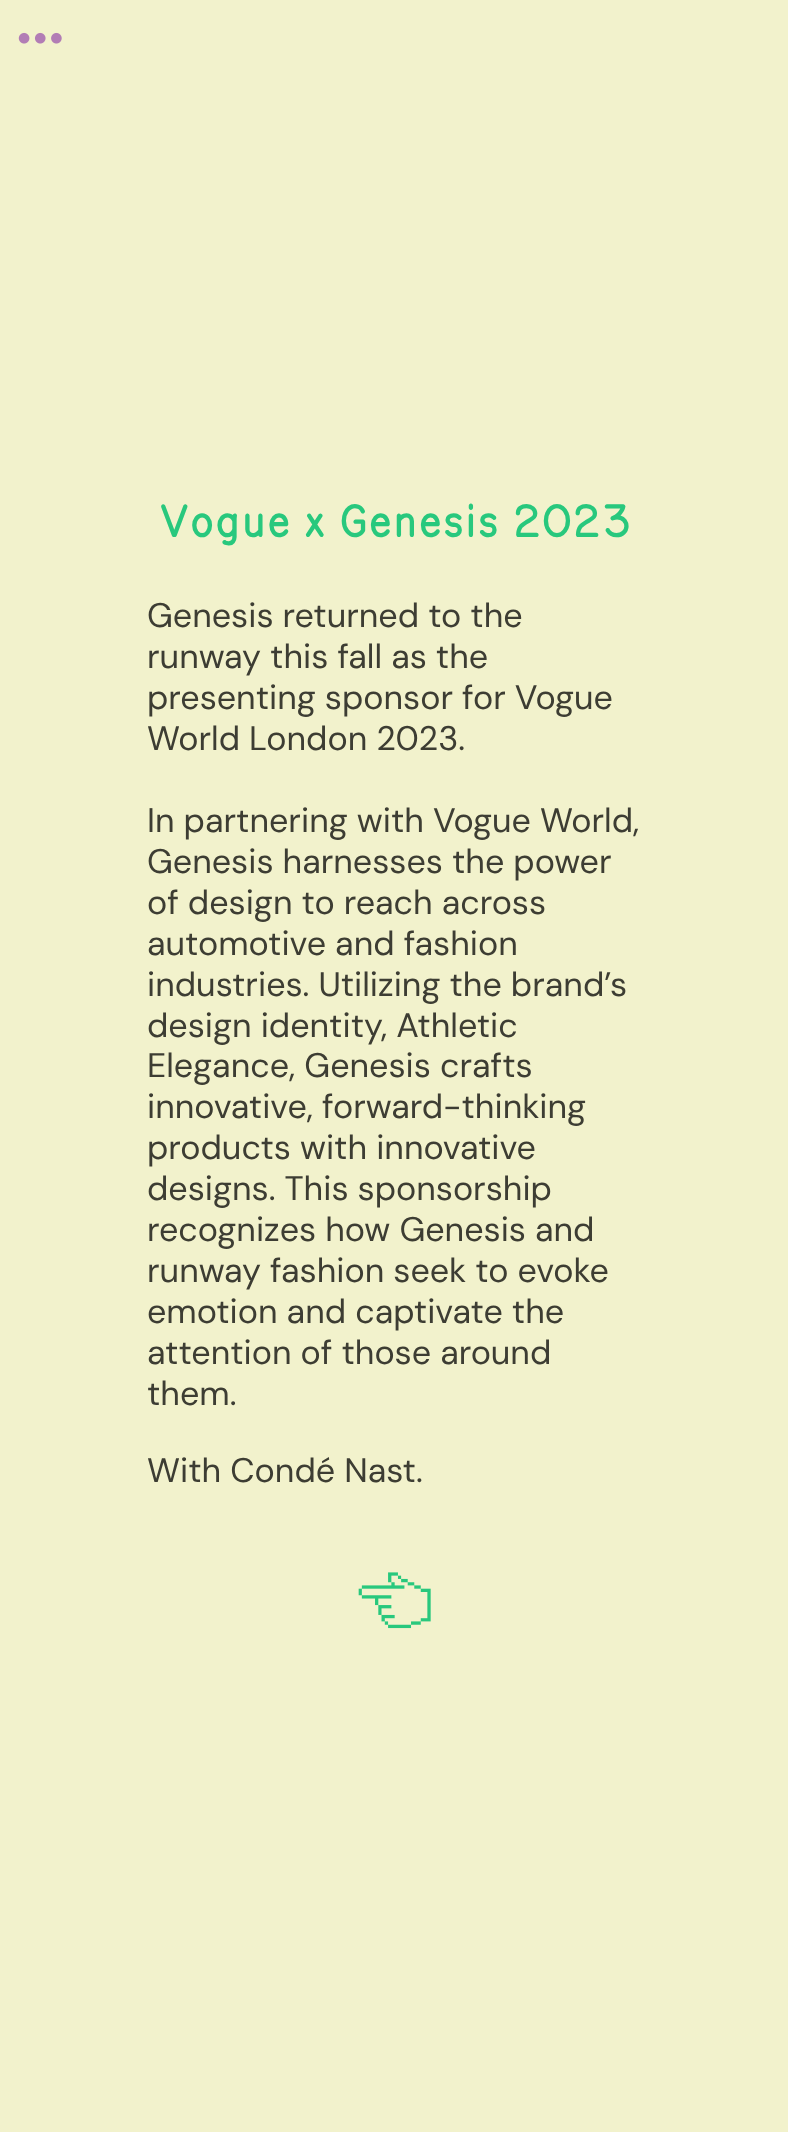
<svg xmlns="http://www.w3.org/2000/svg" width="788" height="2132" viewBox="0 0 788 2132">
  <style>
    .t1 { font: 45.5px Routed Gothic; fill: #28c87d; }
    .t2 { font: 34.1px DM Sans; fill: #3d3d33; }
  </style>
  <rect width="100%" height="100%" fill="#f2f2cc"/>
  <image x="18" y="32" width="44" height="12" href="images/1.png"/>
  <text x="159" y="537" class="t1">Vogue x Genesis 2023</text>
  <text x="147" y="627" class="t2">Genesis returned to the</text>
  <text x="147" y="668" class="t2">runway this fall as the</text>
  <text x="147" y="709" class="t2">presenting sponsor for Vogue</text>
  <text x="147" y="750" class="t2">World London 2023.</text>
  <text x="147" y="832" class="t2">In partnering with Vogue World,</text>
  <text x="147" y="873" class="t2">Genesis harnesses the power</text>
  <text x="147" y="914" class="t2">of design to reach across</text>
  <text x="147" y="955" class="t2">automotive and fashion</text>
  <text x="147" y="996" class="t2">industries. Utilizing the brand’s</text>
  <text x="147" y="1037" class="t2">design identity, Athletic</text>
  <text x="147" y="1077" class="t2">Elegance, Genesis crafts</text>
  <text x="147" y="1118" class="t2">innovative, forward-thinking</text>
  <text x="147" y="1159" class="t2">products with innovative</text>
  <text x="147" y="1200" class="t2">designs. This sponsorship</text>
  <text x="147" y="1241" class="t2">recognizes how Genesis and</text>
  <text x="147" y="1282" class="t2">runway fashion seek to evoke</text>
  <text x="147" y="1323" class="t2">emotion and captivate the</text>
  <text x="147" y="1364" class="t2">attention of those around</text>
  <text x="147" y="1405" class="t2">them.</text>
  <text x="147" y="1482" class="t2">With Condé Nast.</text>
  <image x="358" y="1572" width="73" height="57" href="images/2.png"/>
</svg>
